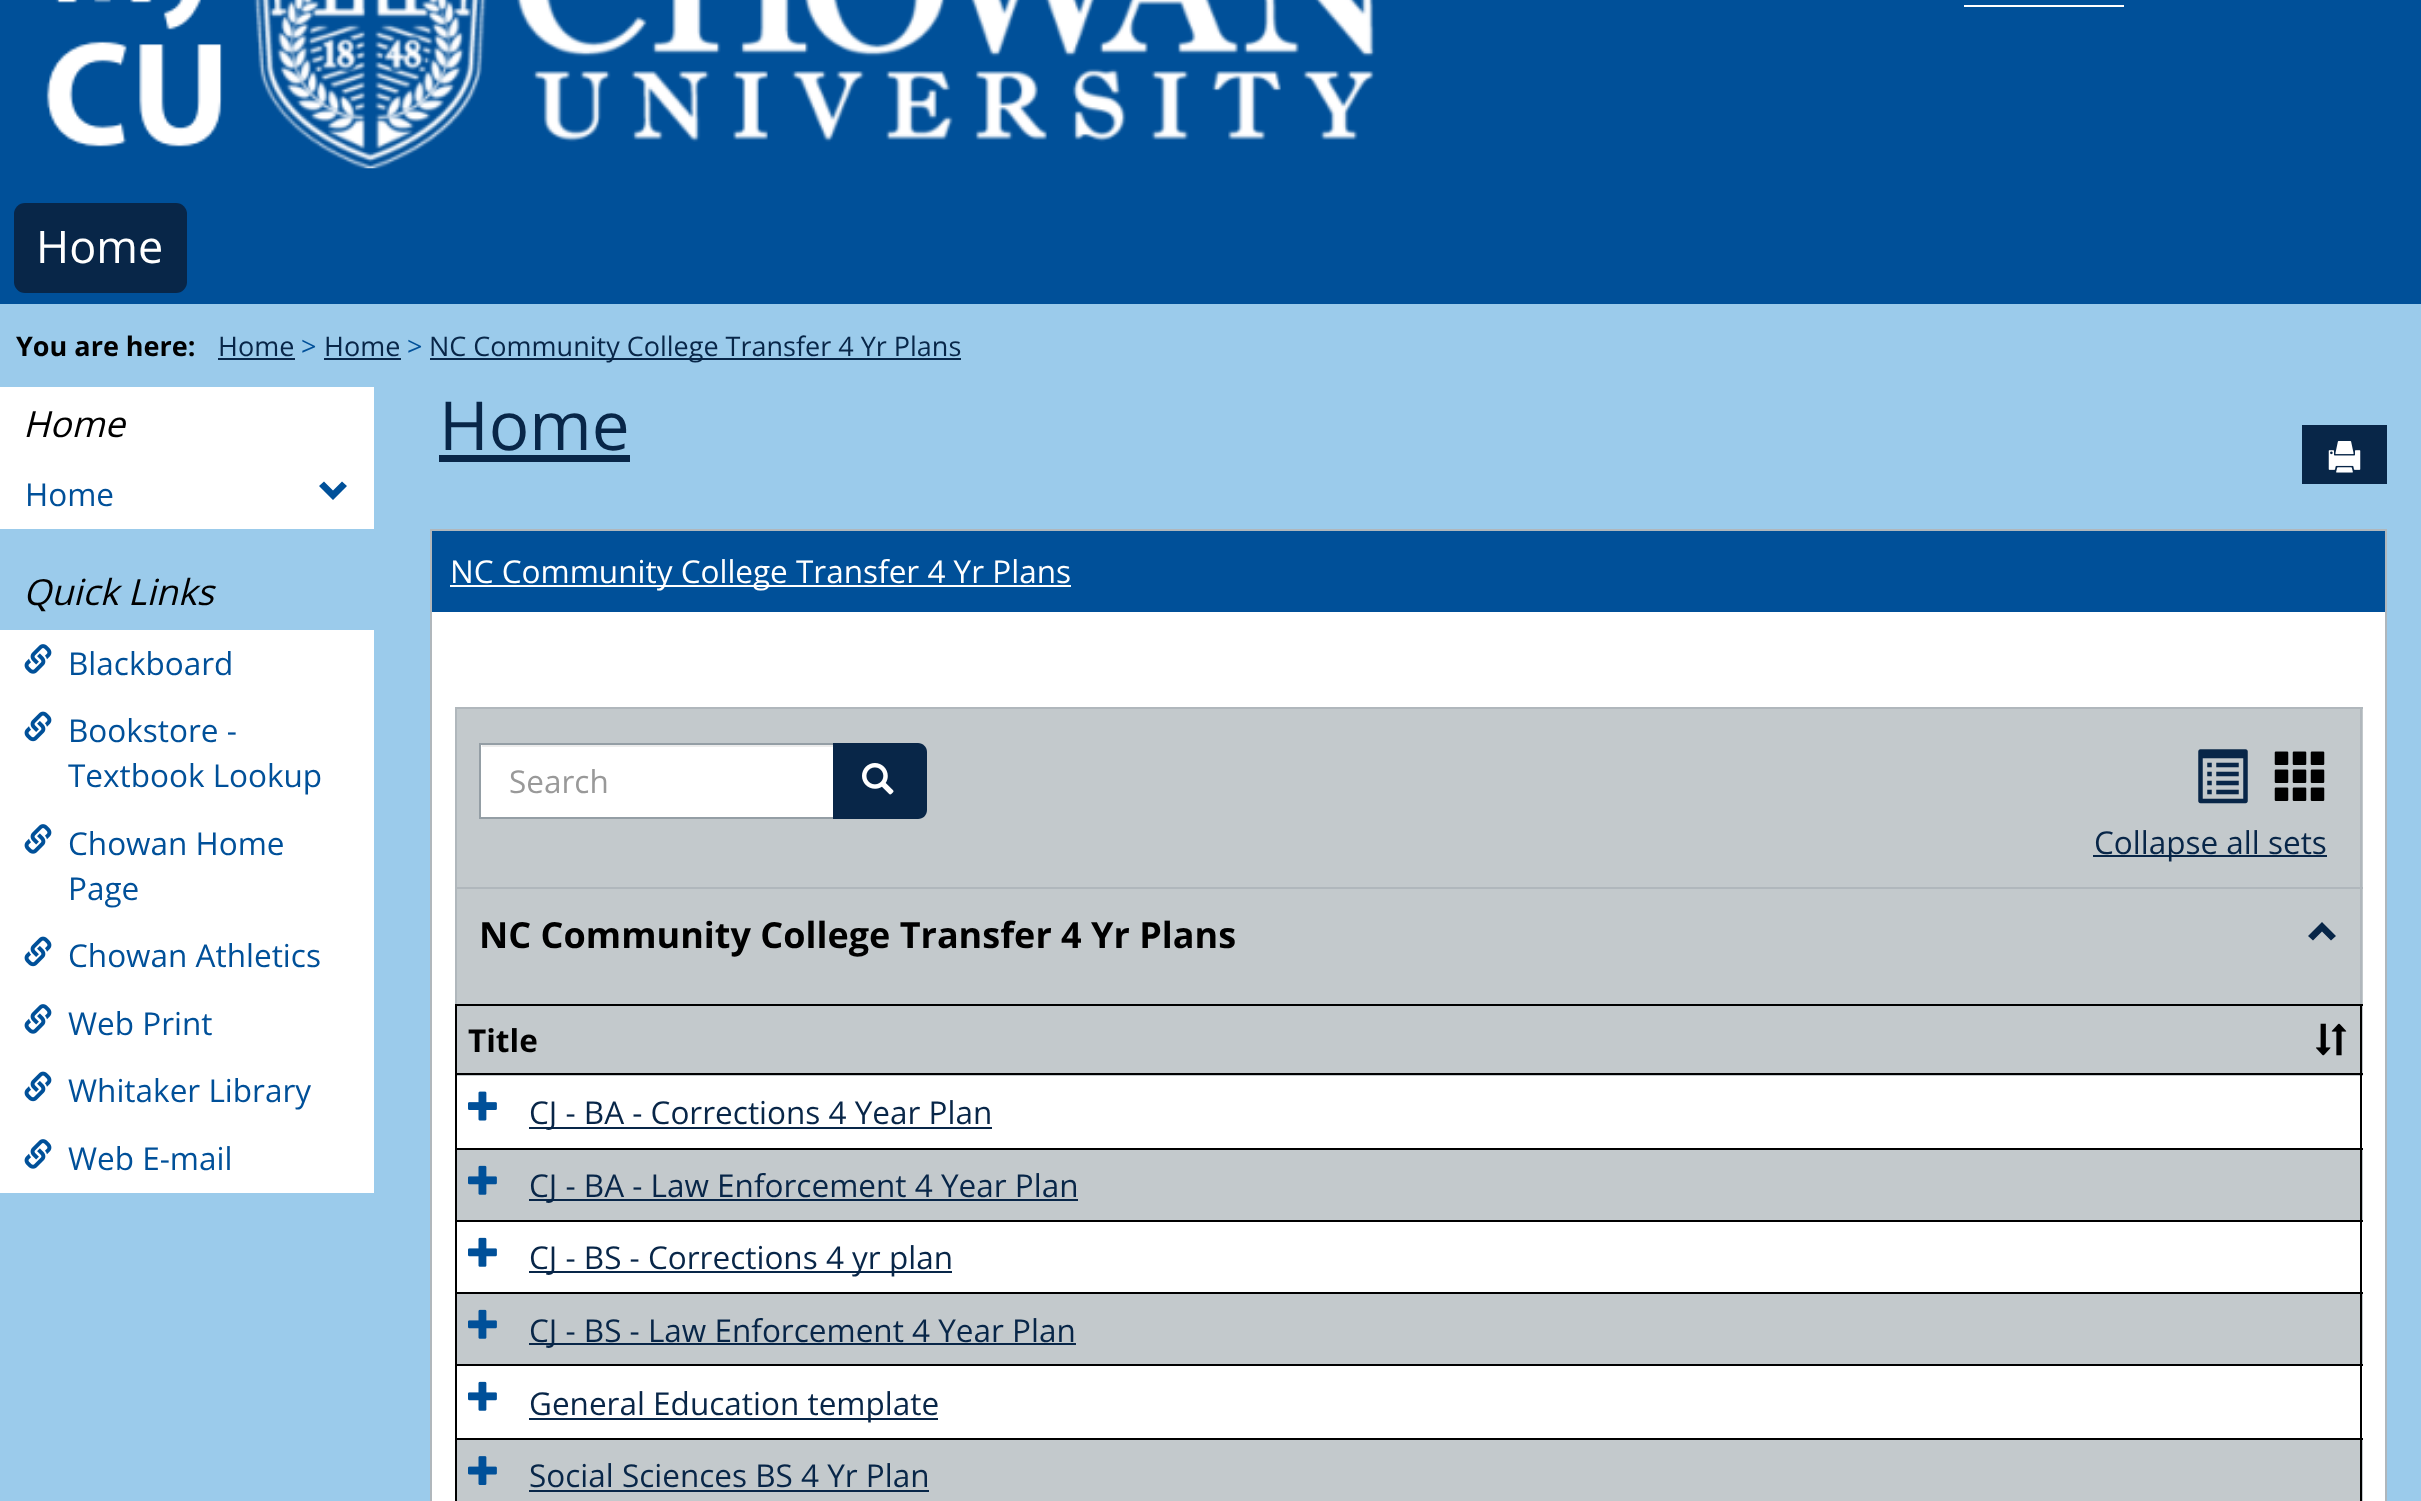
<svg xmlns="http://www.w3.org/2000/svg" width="2421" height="1501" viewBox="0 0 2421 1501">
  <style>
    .t1 { font: 45px Open Sans; fill: #fff; }
    .t2 { font: bold 27px Open Sans; fill: #000; }
    .t3 { font: 27px Open Sans; fill: #082648; }
    .t4 { font: 27px Open Sans; fill: #005099; }
    .t5 { font: italic 36px Open Sans; fill: #000; }
    .t6 { font: 31.5px Open Sans; fill: #005099; }
    .t7 { font: 67.5px Open Sans; fill: #082648; }
    .t8 { font: 31.5px Open Sans; fill: #fff; }
    .t9 { font: 31.5px Open Sans; fill: #999; }
    .t10 { font: 31.5px Open Sans; fill: #082648; }
    .t11 { font: bold 36px Open Sans; fill: #000; }
    .t12 { font: bold 31.5px Open Sans; fill: #000; }
  </style>
  <rect width="100%" height="100%" fill="#9bcbeb"/>
  <rect x="0" y="0" width="2421" height="304" fill="#005099"/>
  <image x="46" y="0" width="1329" height="169" href="images/1.png"/>
  <rect x="1964" y="5" width="160" height="2" fill="#fff"/>
  <rect x="14" y="203" width="173" height="90" rx="11" fill="#082648"/>
  <text x="36" y="263" class="t1">Home</text>
  <text x="16" y="356" class="t2">You are here:</text>
  <text x="218" y="356" class="t3">Home</text>
  <rect x="218" y="358" width="77" height="2" fill="#082648"/>
  <text x="301" y="356" class="t4">&gt;</text>
  <text x="324" y="356" class="t3">Home</text>
  <rect x="324" y="358" width="77" height="2" fill="#082648"/>
  <text x="407" y="356" class="t4">&gt;</text>
  <rect x="430" y="358" width="531" height="2" fill="#082648"/>
  <text x="429" y="356" class="t3">NC Community College Transfer 4 Yr Plans</text>
  <rect x="0" y="387" width="374" height="806" fill="#fff"/>
  <text x="23" y="437" class="t5">Home</text>
  <text x="25" y="506" class="t6">Home</text>
  <path d="M333 500L319 486L324 481.5L333 490.5L342 481.5L347 486Z" fill="#005099"/>
  <rect x="0" y="529" width="374" height="101" fill="#9bcbeb"/>
  <text x="23" y="605" class="t5">Quick Links</text>
  <image x="24" y="644" width="28" height="30" href="images/2.png"/>
  <text x="68" y="675" class="t6">Blackboard</text>
  <image x="24" y="711" width="28" height="31" href="images/3.png"/>
  <text x="68" y="742" class="t6">Bookstore -</text>
  <text x="68" y="787" class="t6">Textbook Lookup</text>
  <image x="24" y="824" width="28" height="30" href="images/2.png"/>
  <text x="68" y="855" class="t6">Chowan Home</text>
  <text x="68" y="900" class="t6">Page</text>
  <image x="24" y="936" width="28" height="31" href="images/3.png"/>
  <text x="68" y="967" class="t6">Chowan Athletics</text>
  <image x="24" y="1004" width="28" height="30" href="images/2.png"/>
  <text x="68" y="1035" class="t6">Web Print</text>
  <image x="24" y="1071" width="28" height="31" href="images/3.png"/>
  <text x="68" y="1102" class="t6">Whitaker Library</text>
  <image x="24" y="1139" width="28" height="30" href="images/2.png"/>
  <text x="68" y="1170" class="t6">Web E-mail</text>
  <text x="439" y="450" class="t7">Home</text>
  <rect x="439" y="455" width="191" height="7" fill="#082648"/>
  <rect x="2302" y="425" width="85" height="59" fill="#082648"/>
  <image x="2328" y="441" width="33" height="32" href="images/4.png"/>
  <rect x="432" y="612" width="1953" height="889" fill="#fff"/>
  <rect x="431" y="530" width="1955" height="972" fill="none" stroke="#b0b7bc" stroke-width="2"/>
  <rect x="432" y="531" width="1953" height="81" fill="#005099"/>
  <rect x="450" y="585" width="621" height="2" fill="#fff"/>
  <text x="450" y="583" class="t8">NC Community College Transfer 4 Yr Plans</text>
  <rect x="457" y="709" width="1906" height="792" fill="#c3c9cc"/>
  <rect x="455" y="707" width="1908" height="2" fill="#b0b7bc"/>
  <rect x="2360" y="707" width="2" height="180" fill="#b0b7bc"/>
  <rect x="455" y="707" width="2" height="180" fill="#b0b7bc"/>
  <rect x="481" y="745" width="352" height="72" fill="#fff"/>
  <rect x="482" y="745" width="351" height="2" fill="#ececec"/>
  <rect x="480" y="744" width="354" height="74" fill="none" stroke="#949ea5" stroke-width="2"/>
  <text x="509" y="793" class="t9">Search</text>
  <path d="M833 743H918C923 743 927 747 927 752V810C927 815 923 819 918 819H833Z" fill="#082648"/>
  <image x="862" y="763" width="32" height="32" href="images/5.png"/>
  <image x="2198" y="749" width="50" height="55" href="images/6.png"/>
  <image x="2274" y="751" width="51" height="50" href="images/7.png"/>
  <rect x="2093" y="855" width="234" height="2" fill="#082648"/>
  <text x="2094" y="854" class="t10">Collapse all sets</text>
  <rect x="455" y="887" width="1908" height="2" fill="#b0b7bc"/>
  <rect x="2360" y="887" width="2" height="72" fill="#b0b7bc"/>
  <rect x="455" y="887" width="2" height="72" fill="#b0b7bc"/>
  <text x="479" y="948" class="t11">NC Community College Transfer 4 Yr Plans</text>
  <path d="M2331 940.5L2322 931.5L2313 940.5L2308 936L2322 922L2336 936Z" fill="#082648"/>
  <rect x="2360" y="959" width="2" height="45" fill="#b0b7bc"/>
  <rect x="455" y="959" width="2" height="45" fill="#b0b7bc"/>
  <rect x="455" y="1004" width="1908" height="2" fill="#000"/>
  <rect x="455" y="1073" width="1908" height="2" fill="#000"/>
  <rect x="457" y="1076" width="1906" height="72" fill="#fff"/>
  <rect x="455" y="1148" width="1908" height="2" fill="#000"/>
  <rect x="455" y="1220" width="1908" height="2" fill="#000"/>
  <rect x="457" y="1222" width="1906" height="70" fill="#fff"/>
  <rect x="455" y="1292" width="1908" height="2" fill="#000"/>
  <rect x="455" y="1364" width="1908" height="2" fill="#000"/>
  <rect x="457" y="1366" width="1906" height="72" fill="#fff"/>
  <rect x="455" y="1438" width="1908" height="2" fill="#000"/>
  <rect x="2360" y="1438" width="2" height="63" fill="#000"/>
  <rect x="2360" y="1364" width="2" height="76" fill="#000"/>
  <rect x="2360" y="1292" width="2" height="74" fill="#000"/>
  <rect x="2360" y="1220" width="2" height="74" fill="#000"/>
  <rect x="2360" y="1148" width="2" height="74" fill="#000"/>
  <rect x="2360" y="1073" width="2" height="77" fill="#000"/>
  <rect x="2360" y="1004" width="2" height="72" fill="#000"/>
  <rect x="455" y="1438" width="2" height="63" fill="#000"/>
  <rect x="455" y="1364" width="2" height="76" fill="#000"/>
  <rect x="455" y="1292" width="2" height="74" fill="#000"/>
  <rect x="455" y="1220" width="2" height="74" fill="#000"/>
  <rect x="455" y="1148" width="2" height="74" fill="#000"/>
  <rect x="455" y="1073" width="2" height="77" fill="#000"/>
  <rect x="455" y="1004" width="2" height="72" fill="#000"/>
  <text x="468" y="1052" class="t12">Title</text>
  <image x="2316" y="1023" width="31" height="33" href="images/8.png"/>
  <image x="468" y="1091" width="29" height="30" href="images/9.png"/>
  <rect x="529" y="1127" width="463" height="2" fill="#082648"/>
  <text x="529" y="1124" class="t10">CJ - BA - Corrections 4 Year Plan</text>
  <image x="468" y="1165" width="29" height="30" href="images/10.png"/>
  <rect x="529" y="1199" width="549" height="2" fill="#082648"/>
  <text x="529" y="1197" class="t10">CJ - BA - Law Enforcement 4 Year Plan</text>
  <image x="468" y="1237" width="29" height="30" href="images/11.png"/>
  <rect x="529" y="1271" width="423" height="2" fill="#082648"/>
  <text x="529" y="1269" class="t10">CJ - BS - Corrections 4 yr plan</text>
  <image x="468" y="1309" width="29" height="30" href="images/10.png"/>
  <rect x="529" y="1343" width="547" height="2" fill="#082648"/>
  <text x="529" y="1342" class="t10">CJ - BS - Law Enforcement 4 Year Plan</text>
  <image x="468" y="1381" width="29" height="30" href="images/11.png"/>
  <rect x="529" y="1418" width="409" height="2" fill="#082648"/>
  <text x="529" y="1415" class="t10">General Education template</text>
  <image x="468" y="1456" width="29" height="29" href="images/12.png"/>
  <text x="529" y="1487" class="t10">Social Sciences BS 4 Yr Plan</text>
  <rect x="529" y="1490" width="400" height="2" fill="#082648"/>
</svg>
